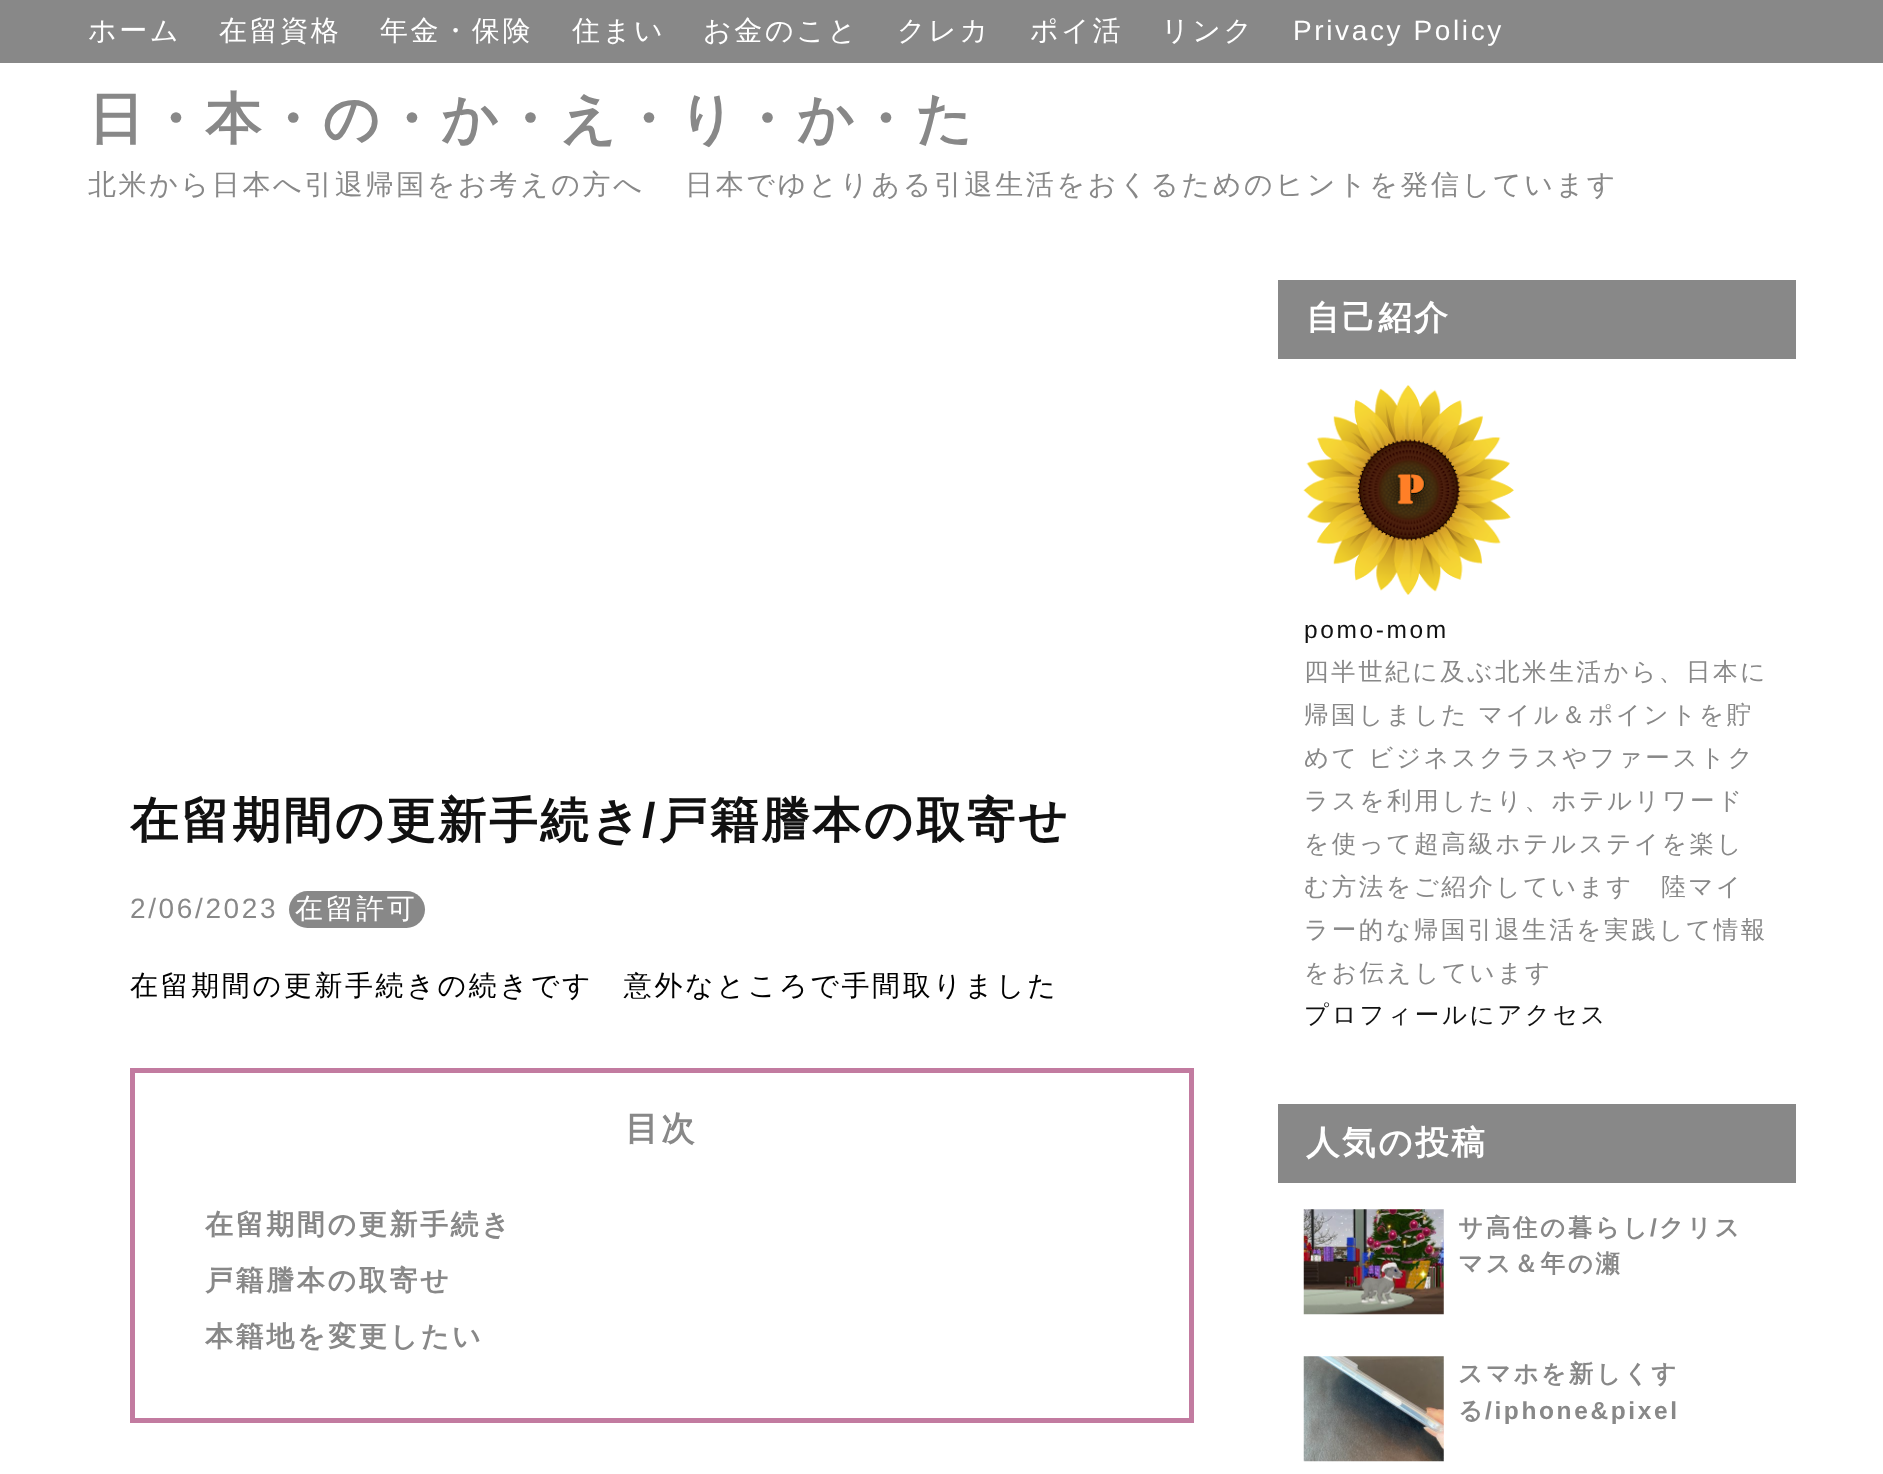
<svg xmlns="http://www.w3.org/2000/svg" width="1883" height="1474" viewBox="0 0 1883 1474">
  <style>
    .t1 { font: 500 28px WenQuanYi Zen Hei; letter-spacing: 2.62px; fill: #fff; }
    .t2 { font: 28px Liberation Sans; letter-spacing: 2.62px; fill: #fff; }
    .t3 { font: bold 56px WenQuanYi Zen Hei; letter-spacing: 2.62px; fill: #888; }
    .t4 { font: 500 28px WenQuanYi Zen Hei; letter-spacing: 2.62px; fill: #888; }
    .t5 { font: bold 48.5px WenQuanYi Zen Hei; letter-spacing: 2.62px; fill: #111; }
    .t6 { font: bold 48.5px Liberation Sans; letter-spacing: 2.62px; fill: #111; }
    .t7 { font: 28px Liberation Sans; letter-spacing: 2.62px; fill: #888; }
    .t8 { font: 500 28px WenQuanYi Zen Hei; letter-spacing: 2.62px; fill: #000; }
    .t9 { font: bold 33.5px WenQuanYi Zen Hei; letter-spacing: 2.62px; fill: #888; }
    .t10 { font: bold 28px WenQuanYi Zen Hei; letter-spacing: 2.62px; fill: #888; }
    .t11 { font: bold 33.5px WenQuanYi Zen Hei; letter-spacing: 2.62px; fill: #fff; }
    .t12 { font: 24.5px Liberation Sans; letter-spacing: 2.62px; fill: #111; }
    .t13 { font: 500 24.5px WenQuanYi Zen Hei; letter-spacing: 2.62px; fill: #888; }
    .t14 { font: 500 24.5px WenQuanYi Zen Hei; letter-spacing: 2.62px; fill: #111; }
    .t15 { font: bold 24.5px WenQuanYi Zen Hei; letter-spacing: 2.62px; fill: #888; }
    .t16 { font: bold 24.5px Liberation Sans; letter-spacing: 2.62px; fill: #888; }
  </style>
  <rect width="100%" height="100%" fill="#fff"/>
  <rect x="0" y="0" width="1883" height="63" fill="#888"/>
  <text x="88" y="40" class="t1">ホーム</text>
  <text x="219" y="40" class="t1">在留資格</text>
  <text x="380" y="40" class="t1">年金・保険</text>
  <text x="572" y="40" class="t1">住まい</text>
  <text x="703" y="40" class="t1">お金のこと</text>
  <text x="897" y="40" class="t1">クレカ</text>
  <text x="1030" y="40" class="t1">ポイ活</text>
  <text x="1161" y="40" class="t1">リンク</text>
  <text x="1293" y="40" class="t2">Privacy Policy</text>
  <text x="88" y="138" class="t3">日・本・の・か・え・り・か・た</text>
  <text x="88" y="194" word-spacing="-1" class="t4">北米から日本へ引退帰国をお考えの方へ　 日本でゆとりある引退生活をおくるためのヒントを発信しています</text>
  <text x="130" y="837" class="t5">在留期間の更新手続き</text>
  <text x="642" y="837" class="t6">/</text>
  <text x="659" y="837" class="t5">戸籍謄本の取寄せ</text>
  <text x="130" y="918" class="t7">2/06/2023</text>
  <rect x="289" y="891" width="136" height="37" rx="18.5" fill="#888"/>
  <text x="295" y="918" class="t1">在留許可</text>
  <text x="130" y="995" class="t8">在留期間の更新手続きの続きです　意外なところで手間取りました</text>
  <rect x="132.5" y="1070.5" width="1059" height="350" fill="none" stroke="#c27ba0" stroke-width="5"/>
  <text x="625" y="1140" class="t9">目次</text>
  <text x="205" y="1234" class="t10">在留期間の更新手続き</text>
  <text x="205" y="1290" class="t10">戸籍謄本の取寄せ</text>
  <text x="205" y="1346" class="t10">本籍地を変更したい</text>
  <rect x="1278" y="280" width="518" height="79" fill="#888"/>
  <text x="1306" y="329" class="t11">自己紹介</text>
  <image x="1303" y="385" width="211" height="210" href="images/1.png"/>
  <text x="1304" y="638" class="t12">pomo-mom</text>
  <text x="1304" y="680" class="t13">四半世紀に及ぶ北米生活から、日本に</text>
  <text x="1304" y="723" class="t13">帰国しました</text>
  <text x="1478" y="723" class="t13">マイル＆ポイントを貯</text>
  <text x="1304" y="766" word-spacing="-1" class="t13">めて ビジネスクラスやファーストク</text>
  <text x="1304" y="809" class="t13">ラスを利用したり、ホテルリワード</text>
  <text x="1304" y="852" class="t13">を使って超高級ホテルステイを楽し</text>
  <text x="1304" y="895" class="t13">む方法をご紹介しています　陸マイ</text>
  <text x="1304" y="938" class="t13">ラー的な帰国引退生活を実践して情報</text>
  <text x="1304" y="981" class="t13">をお伝えしています</text>
  <text x="1304" y="1023" class="t14">プロフィールにアクセス</text>
  <rect x="1278" y="1104" width="518" height="79" fill="#888"/>
  <text x="1306" y="1154" class="t11">人気の投稿</text>
  <image x="1303" y="1209" width="141" height="106" href="images/2.png"/>
  <text x="1458" y="1236" class="t15">サ高住の暮らし</text>
  <text x="1650" y="1236" class="t16">/</text>
  <text x="1659" y="1236" class="t15">クリス</text>
  <text x="1458" y="1272" class="t15">マス＆年の瀬</text>
  <image x="1303" y="1356" width="141" height="106" href="images/3.png"/>
  <text x="1458" y="1382" class="t15">スマホを新しくす</text>
  <text x="1458" y="1419" class="t15">る</text>
  <text x="1485" y="1419" class="t16">/iphone&amp;pixel</text>
</svg>
